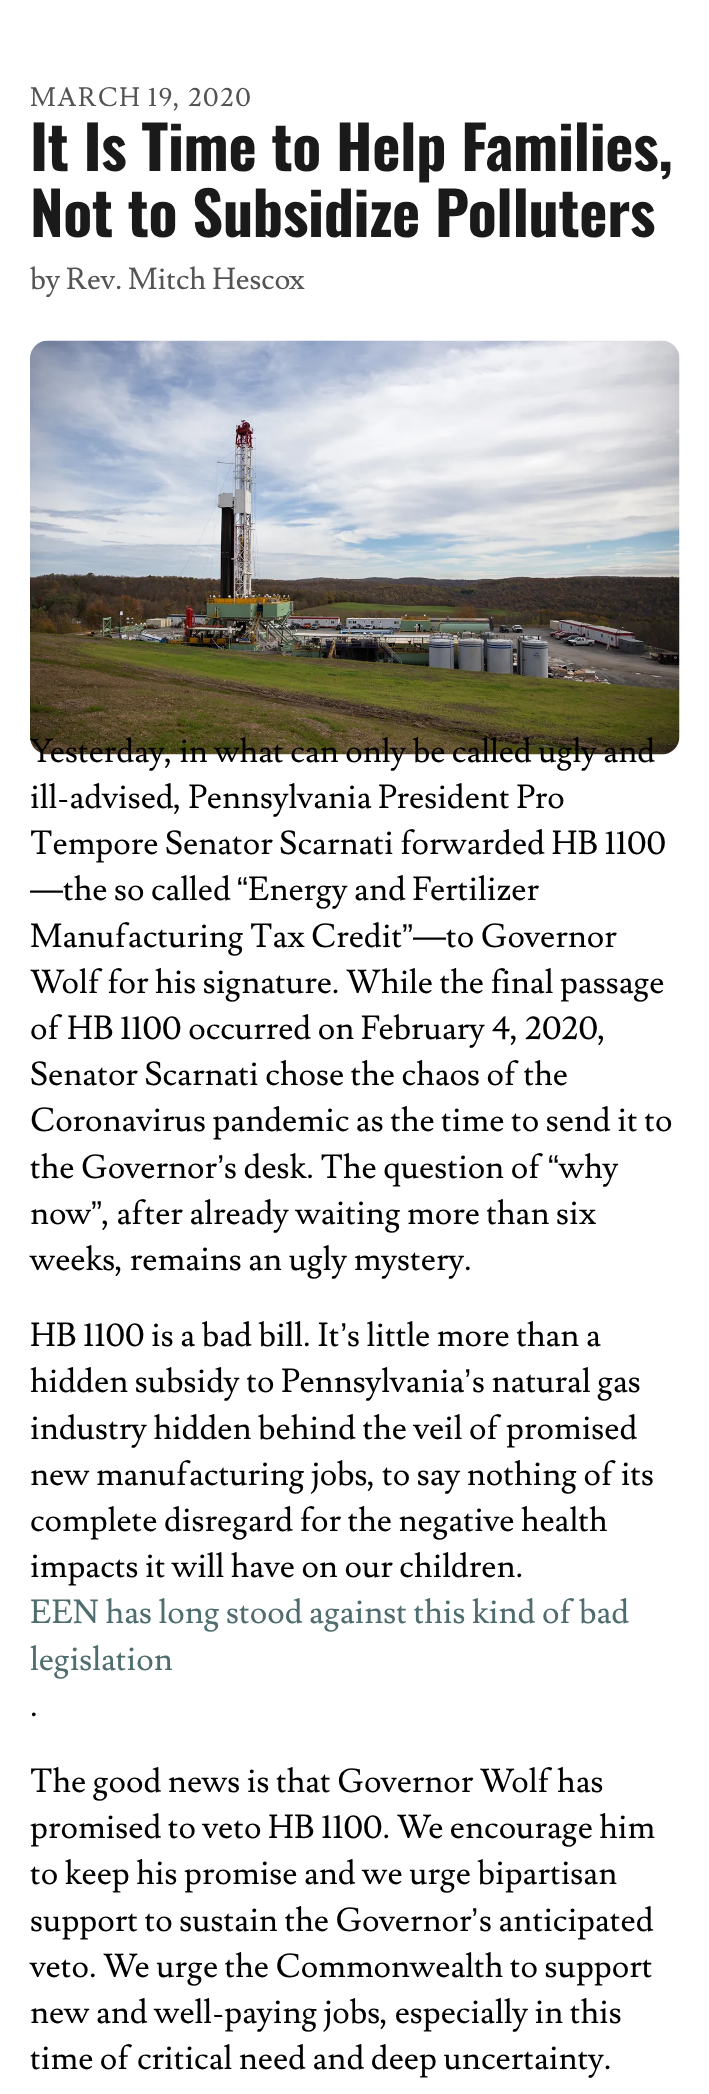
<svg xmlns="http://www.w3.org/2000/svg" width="709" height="2094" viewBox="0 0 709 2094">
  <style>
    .t1 { font: 26.25px Lusitana; letter-spacing: 1.5px; fill: #545454; }
    .t2 { font: bold 60px Oswald; letter-spacing: -0.3px; fill: #1a1a1a; }
    .t3 { font: 30px Lusitana; fill: #545454; }
    .t4 { font: 33px Lusitana; fill: #000; }
    .t5 { font: 33px Liberation Sans; fill: #000; }
    .t6 { font: 33px Lusitana; fill: #4f6d6e; }
  </style>
  <rect width="100%" height="100%" fill="#fff"/>
  <text x="30" y="106" class="t1">MARCH 19, 2020</text>
  <text x="30" y="171" class="t2">It Is Time to Help Families,</text>
  <text x="30" y="237" class="t2">Not to Subsidize Polluters</text>
  <text x="30" y="289" class="t3">by Rev. Mitch Hescox</text>
  <image x="30" y="340" width="650" height="415" href="images/1.png"/>
  <text x="30" y="762" class="t4">Yesterday, in what can only be called ugly and</text>
  <text x="30" y="808" class="t4">ill-advised, Pennsylvania President Pro</text>
  <text x="30" y="854" class="t4">Tempore Senator Scarnati forwarded HB 1100</text>
  <text x="63" y="900" class="t4">the so called</text>
  <text x="237" y="900" class="t5">“</text>
  <text x="248" y="900" class="t4">Energy and Fertilizer</text>
  <text x="30" y="900" class="t5">—</text>
  <text x="30" y="947" class="t4">Manufacturing Tax Credit</text>
  <text x="402" y="947" class="t5">”—</text>
  <text x="446" y="947" class="t4">to Governor</text>
  <text x="30" y="993" class="t4">Wolf for his signature. While the final passage</text>
  <text x="30" y="1039" class="t4">of HB 1100 occurred on February 4, 2020,</text>
  <text x="30" y="1085" class="t4">Senator Scarnati chose the chaos of the</text>
  <text x="30" y="1131" class="t4">Coronavirus pandemic as the time to send it to</text>
  <text x="30" y="1178" class="t4">the Governor</text>
  <text x="217" y="1178" class="t5">’</text>
  <text x="224" y="1178" class="t4">s desk. The question of</text>
  <text x="548" y="1178" class="t5">“</text>
  <text x="559" y="1178" class="t4">why</text>
  <text x="91" y="1224" class="t5">”</text>
  <text x="102" y="1224" class="t4">, after already waiting more than six</text>
  <text x="30" y="1224" class="t4">now</text>
  <text x="30" y="1270" class="t4">weeks, remains an ugly mystery.</text>
  <text x="30" y="1346" class="t4">HB 1100 is a bad bill. It</text>
  <text x="340" y="1346" class="t5">’</text>
  <text x="347" y="1346" class="t4">s little more than a</text>
  <text x="30" y="1392" class="t4">hidden subsidy to Pennsylvania</text>
  <text x="464" y="1392" class="t5">’</text>
  <text x="472" y="1392" class="t4">s natural gas</text>
  <text x="30" y="1439" class="t4">industry hidden behind the veil of promised</text>
  <text x="30" y="1485" class="t4">new manufacturing jobs, to say nothing of its</text>
  <text x="30" y="1531" class="t4">complete disregard for the negative health</text>
  <text x="30" y="1577" class="t4">impacts it will have on our children.</text>
  <text x="30" y="1623" class="t6">EEN has long stood against this kind of bad</text>
  <text x="30" y="1670" class="t6">legislation</text>
  <text x="30" y="1716" class="t4">.</text>
  <text x="30" y="1792" class="t4">The good news is that Governor Wolf has</text>
  <text x="30" y="1838" class="t4">promised to veto HB 1100. We encourage him</text>
  <text x="30" y="1884" class="t4">to keep his promise and we urge bipartisan</text>
  <text x="30" y="1931" class="t4">support to sustain the Governor</text>
  <text x="471" y="1931" class="t5">’</text>
  <text x="479" y="1931" class="t4">s anticipated</text>
  <text x="30" y="1977" class="t4">veto. We urge the Commonwealth to support</text>
  <text x="30" y="2023" class="t4">new and well-paying jobs, especially in this</text>
  <text x="30" y="2069" class="t4">time of critical need and deep uncertainty.</text>
</svg>
